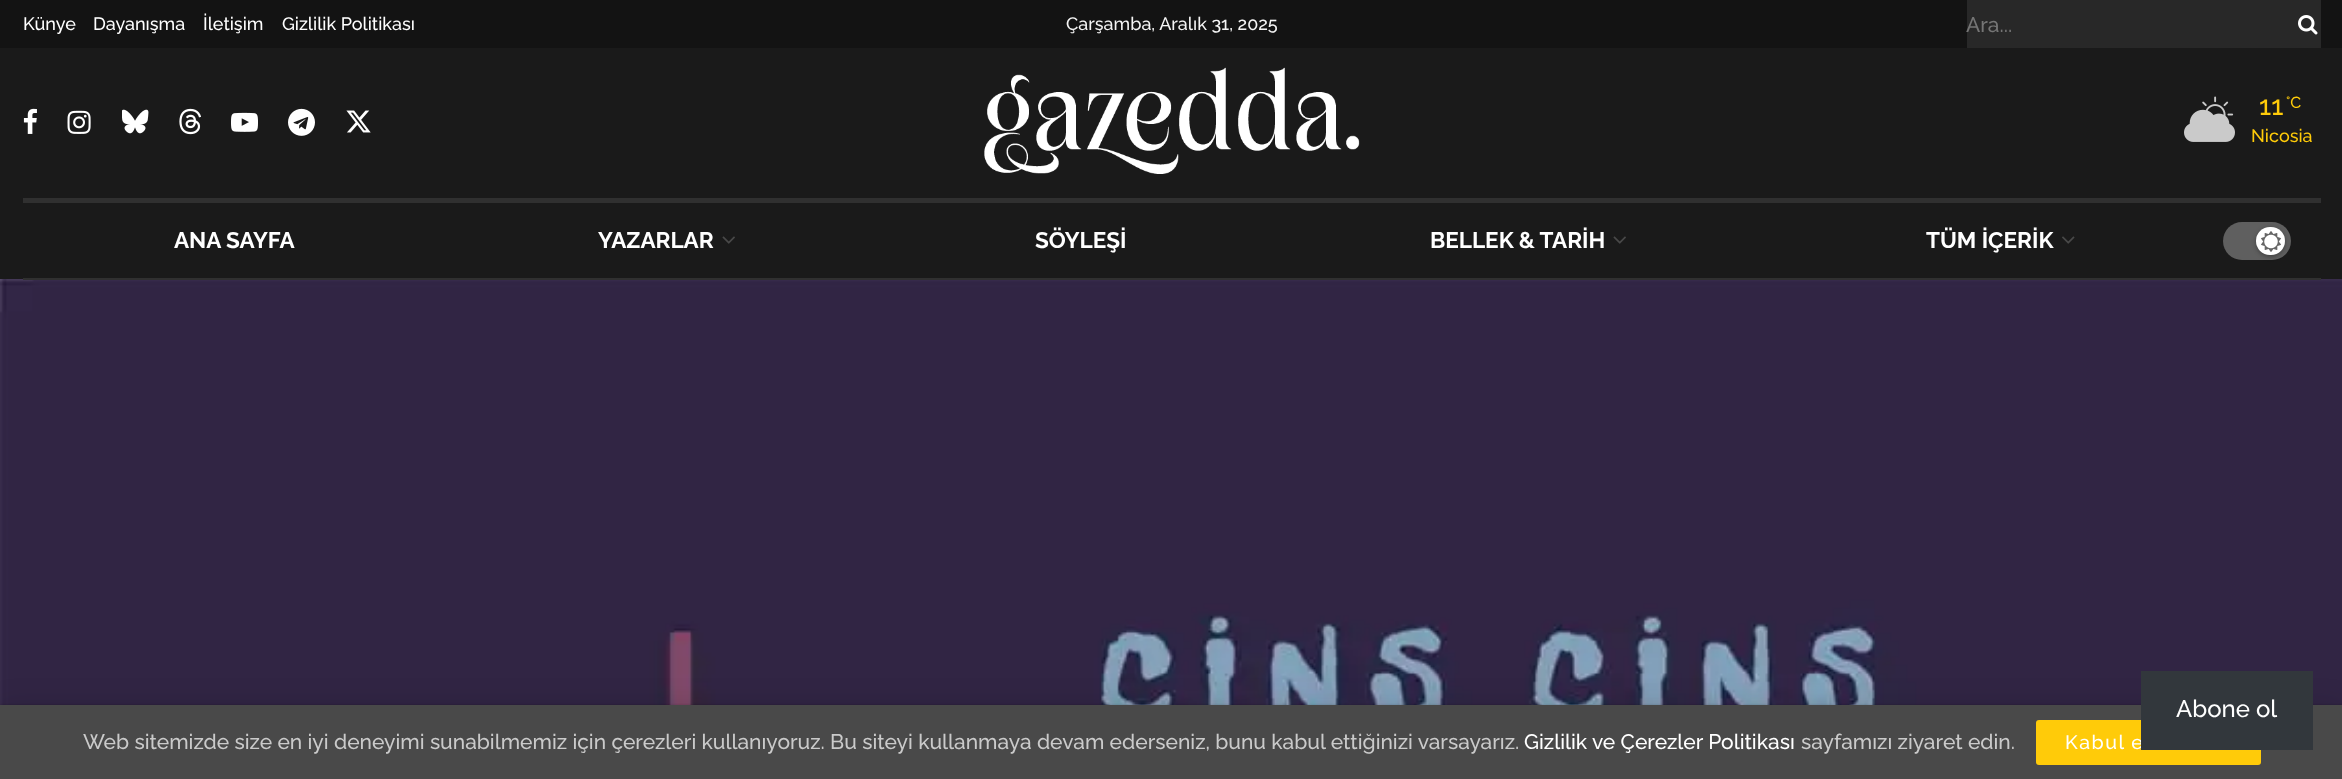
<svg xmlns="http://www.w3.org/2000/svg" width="2342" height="779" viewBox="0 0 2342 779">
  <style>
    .t1 { font: 500 18px Raleway; fill: #fff; }
    .t2 { font: 500 18px Raleway; fill: #f5f5f5; }
    .t3 { font: 500 21px Raleway; fill: #757575; }
    .t4 { font: 500 27px Raleway; fill: #ffcb09; }
    .t5 { font: 500 16px Raleway; fill: #ffcb09; }
    .t6 { font: 500 18px Raleway; fill: #ffcb09; }
    .t7 { font: bold 22.5px Raleway; fill: #fff; }
    .t8 { font: 500 19.5px Raleway; letter-spacing: 1.5px; fill: #fff; }
    .t9 { font: 500 24px Raleway; fill: #fff; }
    .t10 { font: 500 21px Raleway; fill: #cacaca; }
    .t11 { font: 500 21px Raleway; fill: #fff; }
  </style>
  <rect width="100%" height="100%" fill="#1a1a1a"/>
  <rect x="0" y="0" width="2342" height="48" fill="#131313"/>
  <text x="23" y="30" class="t1">Künye</text>
  <text x="93" y="30" class="t1">Dayanışma</text>
  <text x="203" y="30" class="t1">İletişim</text>
  <text x="282" y="30" class="t1">Gizlilik Politikası</text>
  <text x="1066" y="30" class="t2">Çarşamba, Aralık 31, 2025</text>
  <rect x="1967" y="0" width="354" height="48" fill="#282828"/>
  <text x="1966" y="32" class="t3">Ara...</text>
  <image x="2298" y="15" width="20" height="20" href="images/1.png"/>
  <image x="23" y="108" width="14" height="26" href="images/2.png"/>
  <image x="67" y="110" width="24" height="24" href="images/3.png"/>
  <image x="122" y="109" width="27" height="25" href="images/4.png"/>
  <image x="179" y="108" width="22" height="27" href="images/5.png"/>
  <image x="231" y="112" width="27" height="20" href="images/6.png"/>
  <image x="288" y="108" width="27" height="28" href="images/7.png"/>
  <image x="346" y="110" width="25" height="23" href="images/8.png"/>
  <image x="984" y="67" width="376" height="107" href="images/9.png"/>
  <image x="2184" y="96" width="51" height="46" href="images/10.png"/>
  <text x="2259" y="115" class="t4">11</text>
  <text x="2286" y="108" class="t5">°C</text>
  <text x="2251" y="142" class="t6">Nicosia</text>
  <rect x="23" y="198" width="2298" height="5" fill="#303030"/>
  <image x="0" y="279" width="2342" height="426" href="images/14.png"/>
  <rect x="23" y="278" width="2298" height="2" fill="#303030"/>
  <text x="174" y="248" class="t7">ANA SAYFA</text>
  <text x="598" y="248" class="t7">YAZARLAR</text>
  <image x="722" y="236" width="13" height="8" href="images/11.png"/>
  <text x="1035" y="248" class="t7">SÖYLEŞİ</text>
  <text x="1430" y="248" class="t7">BELLEK &amp; TARİH</text>
  <image x="1613" y="236" width="13" height="8" href="images/11.png"/>
  <text x="1926" y="248" class="t7">TÜM İÇERİK</text>
  <image x="2062" y="236" width="13" height="8" href="images/12.png"/>
  <rect x="2223" y="222" width="68" height="38" rx="19" fill="#5f5f5f"/>
  <rect x="2256" y="228" width="29" height="29" rx="14.5" fill="#0000004d" filter="blur(2px)"/>
  <rect x="2256" y="227" width="29" height="28" rx="14" fill="#fff"/>
  <image x="2261" y="231" width="20" height="21" href="images/13.png"/>
  <rect x="0" y="708" width="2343" height="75" fill="#00000026" filter="blur(15px)"/>
  <rect x="0" y="705" width="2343" height="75" fill="#00000033" filter="blur(1px)"/>
  <rect x="0" y="705" width="2342" height="74" fill="#494949"/>
  <rect x="2036" y="720" width="225" height="45" rx="3" fill="#ffcb09"/>
  <text x="2065" y="749" class="t8">Kabul e</text>
  <rect x="2141" y="671" width="172" height="79" fill="#32373c"/>
  <text x="2176" y="717" class="t9">Abone ol</text>
  <text x="83" y="749" class="t10">Web sitemizde size en iyi deneyimi sunabilmemiz için çerezleri kullanıyoruz. Bu siteyi kullanmaya devam ederseniz, bunu kabul ettiğinizi varsayarız.</text>
  <text x="1524" y="749" class="t11">Gizlilik ve Çerezler Politikası</text>
  <text x="1801" y="749" class="t10">sayfamızı ziyaret edin.</text>
</svg>
